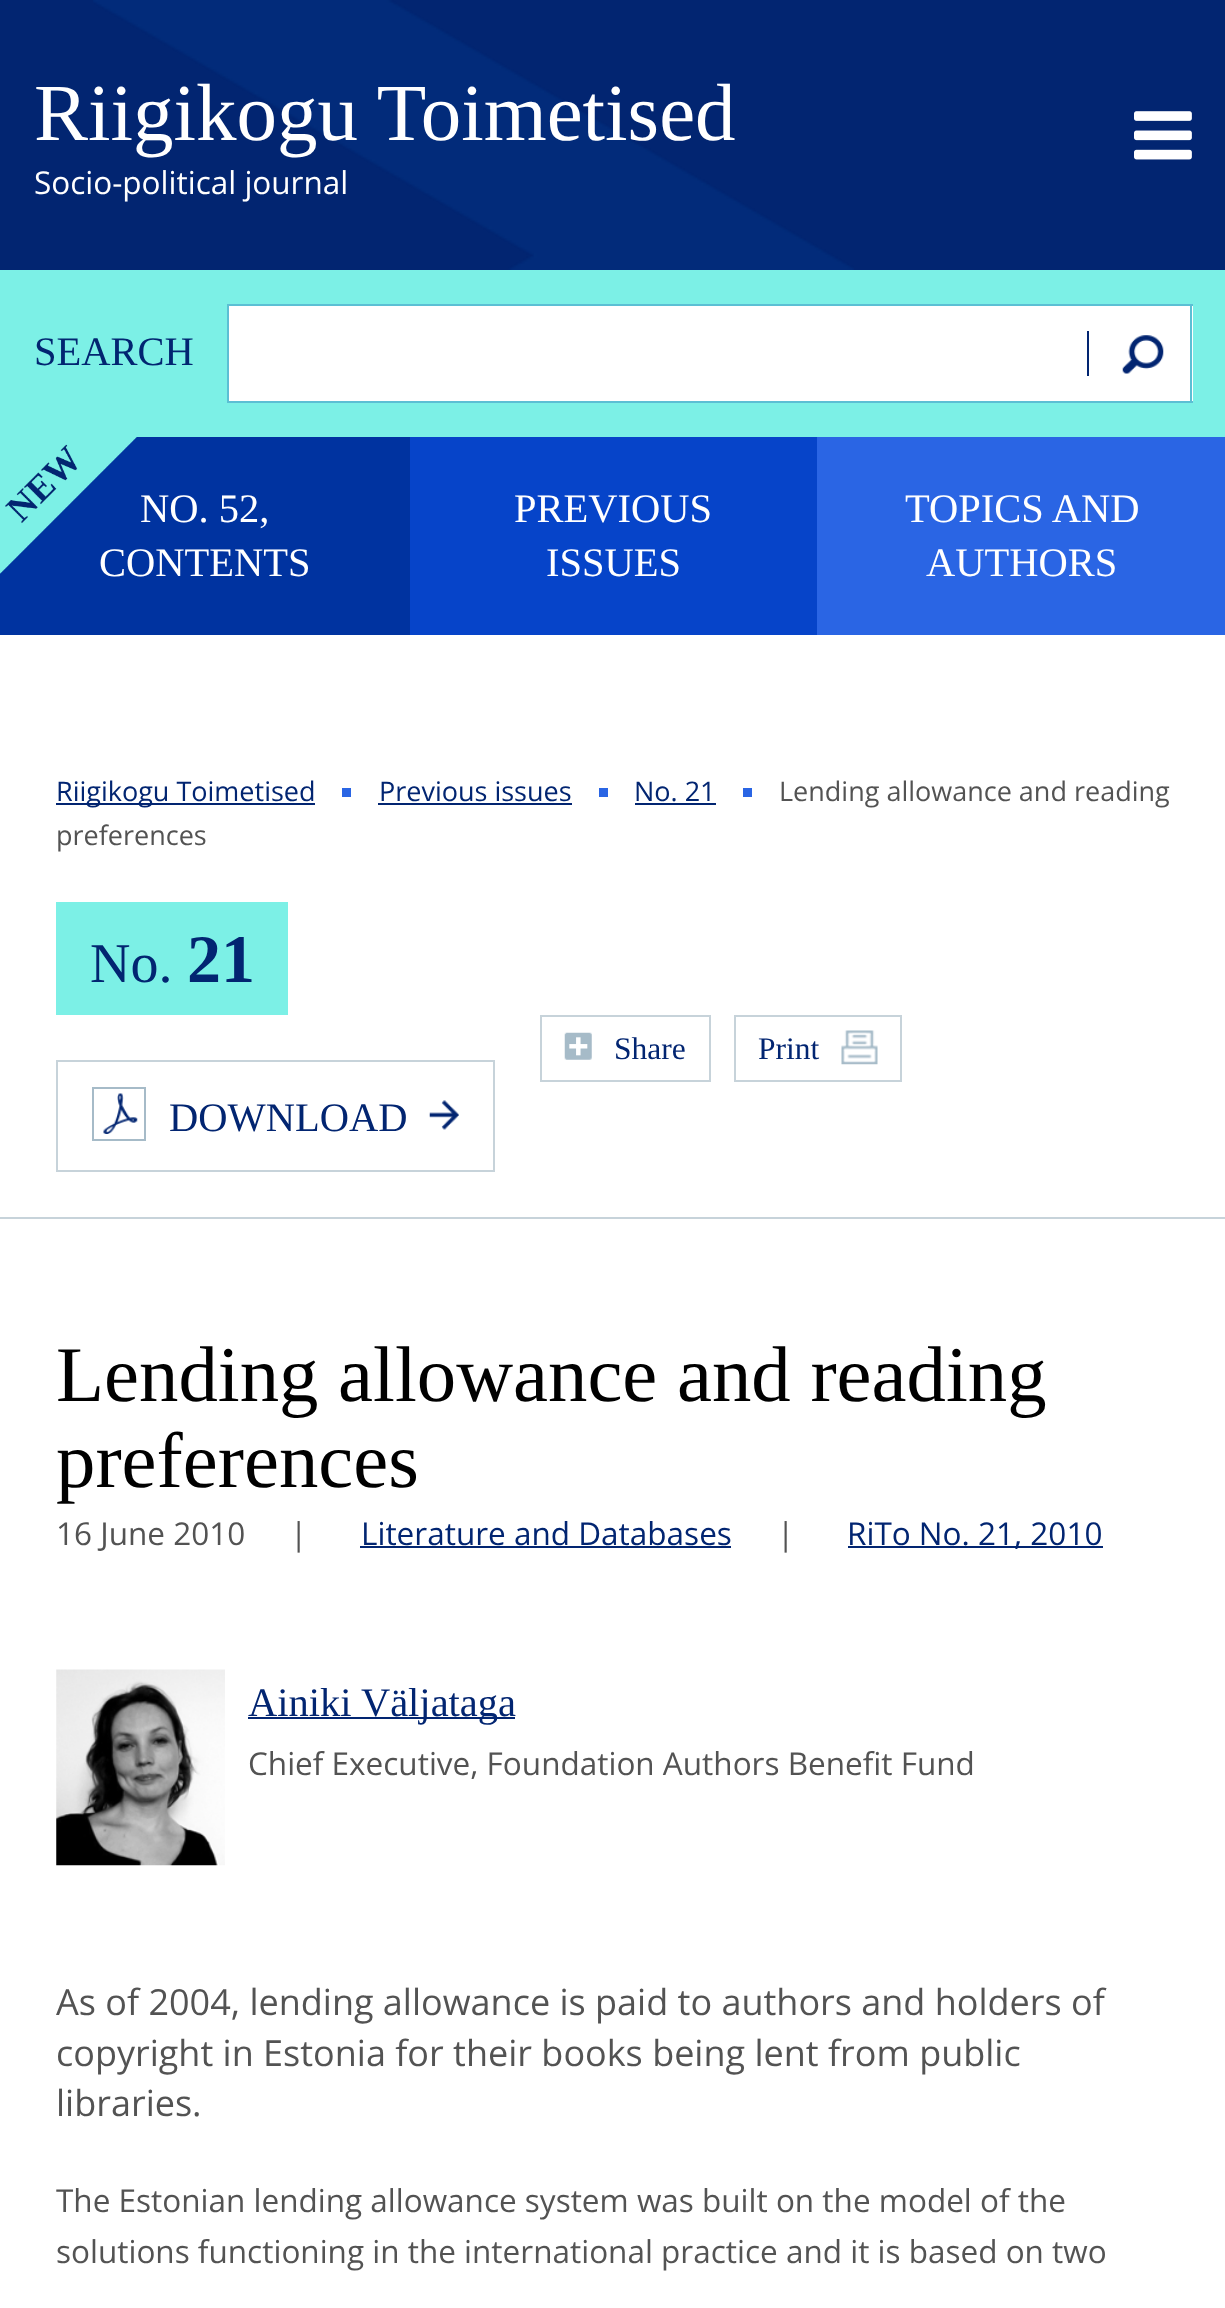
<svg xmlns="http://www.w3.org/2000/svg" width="1225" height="2308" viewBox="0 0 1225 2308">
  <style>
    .t1 { font: 81px Tinos; fill: #fff; }
    .t2 { font: 31.5px Open Sans; fill: #fff; }
    .t3 { font: 40.5px Tinos; fill: #022571; }
    .t4 { font: 40.5px Tinos; fill: #fff; }
    .t5 { font: 27px Open Sans; fill: #022571; }
    .t6 { font: 27px Open Sans; fill: #535353; }
    .t7 { font: 56px Tinos; fill: #022571; }
    .t8 { font: bold 68px Tinos; fill: #022571; }
    .t9 { font: 31.5px Tinos; fill: #022571; }
    .t10 { font: 78.75px Tinos; fill: #000; }
    .t11 { font: 31.5px Open Sans; fill: #535353; }
    .t12 { font: 31.5px Open Sans; fill: #022571; }
    .t13 { font: 36px Open Sans; fill: #535353; }
  </style>
  <rect width="100%" height="100%" fill="#fff"/>
  <rect x="0" y="0" width="1225" height="270" fill="#022571"/>
  <image x="93" y="0" width="761" height="270" href="images/1.png"/>
  <text x="34" y="140" class="t1">Riigikogu Toimetised</text>
  <text x="34" y="194" class="t2">Socio-political journal</text>
  <image x="1134" y="111" width="58" height="49" href="images/2.png"/>
  <rect x="0" y="270" width="1225" height="167" fill="#7cf0e6"/>
  <rect x="229" y="306" width="964" height="95" fill="#fff"/>
  <rect x="227" y="304" width="966" height="2" fill="#5cbfd4"/>
  <rect x="227" y="401" width="867" height="2" fill="#5cbfd4"/>
  <rect x="227" y="304" width="2" height="99" fill="#5cbfd4"/>
  <text x="34" y="365" class="t3">SEARCH</text>
  <image x="1122" y="335" width="42" height="39" href="images/3.png"/>
  <rect x="1190" y="304" width="2" height="99" fill="#5cbfd4"/>
  <rect x="1094" y="401" width="99" height="2" fill="#5cbfd4"/>
  <rect x="1087" y="331" width="2" height="45" fill="#022571"/>
  <rect x="817" y="437" width="408" height="198" fill="#2a65e4"/>
  <rect x="0" y="437" width="410" height="198" fill="#0033a0"/>
  <image x="0" y="437" width="137" height="137" href="images/4.png"/>
  <text x="140" y="522" class="t4">NO. 52,</text>
  <text x="99" y="576" class="t4">CONTENTS</text>
  <rect x="410" y="437" width="407" height="198" fill="#0644c9"/>
  <text x="514" y="522" class="t4">PREVIOUS</text>
  <text x="546" y="576" class="t4">ISSUES</text>
  <text x="905" y="522" class="t4">TOPICS AND</text>
  <text x="926" y="576" class="t4">AUTHORS</text>
  <rect x="0" y="1217" width="1225" height="2" fill="#c7d3da"/>
  <rect x="56" y="803" width="259" height="2" fill="#022571"/>
  <text x="56" y="801" class="t5">Riigikogu Toimetised</text>
  <rect x="342" y="788" width="9" height="9" fill="#2a65e4"/>
  <text x="379" y="801" class="t5">Previous issues</text>
  <rect x="378" y="803" width="194" height="2" fill="#022571"/>
  <rect x="599" y="788" width="9" height="9" fill="#2a65e4"/>
  <text x="634" y="801" class="t5">No. 21</text>
  <rect x="635" y="803" width="81" height="2" fill="#022571"/>
  <rect x="743" y="788" width="9" height="9" fill="#2a65e4"/>
  <text x="779" y="801" class="t6">Lending allowance and reading</text>
  <text x="56" y="845" class="t6">preferences</text>
  <rect x="56" y="902" width="232" height="113" fill="#7cf0e6"/>
  <text x="90" y="982" class="t7">No.</text>
  <text x="187" y="982" class="t8">21</text>
  <rect x="57" y="1061" width="437" height="110" fill="none" stroke="#c7d3da" stroke-width="2"/>
  <image x="103" y="1093" width="35" height="41" href="images/5.png"/>
  <rect x="93" y="1088" width="52" height="52" fill="none" stroke="#a6bbc8" stroke-width="2"/>
  <text x="169" y="1131" class="t3">DOWNLOAD</text>
  <image x="429" y="1100" width="30" height="30" href="images/6.png"/>
  <rect x="541" y="1016" width="169" height="65" fill="none" stroke="#c7d3da" stroke-width="2"/>
  <image x="564" y="1032" width="28" height="28" href="images/7.png"/>
  <text x="614" y="1059" class="t9">Share</text>
  <rect x="735" y="1016" width="166" height="65" fill="none" stroke="#c7d3da" stroke-width="2"/>
  <text x="758" y="1059" class="t9">Print</text>
  <image x="841" y="1030" width="37" height="35" href="images/8.png"/>
  <text x="56" y="1401" class="t10">Lending allowance and reading</text>
  <text x="56" y="1487" class="t10">preferences</text>
  <text x="56" y="1545" class="t11">16 June 2010</text>
  <text x="290" y="1545" class="t11">|</text>
  <text x="361" y="1545" class="t12">Literature and Databases</text>
  <rect x="360" y="1546" width="371" height="2" fill="#022571"/>
  <text x="777" y="1545" class="t11">|</text>
  <rect x="848" y="1546" width="255" height="2" fill="#022571"/>
  <text x="847" y="1545" class="t12">RiTo No. 21, 2010</text>
  <image x="56" y="1669" width="169" height="197" href="images/9.png"/>
  <rect x="248" y="1717" width="267" height="2" fill="#022571"/>
  <text x="248" y="1716" class="t3">Ainiki Väljataga</text>
  <text x="248" y="1775" class="t11">Chief Executive, Foundation Authors Benefit Fund</text>
  <text x="56" y="2015" class="t13">As of 2004, lending allowance is paid to authors and holders of</text>
  <text x="56" y="2066" class="t13">copyright in Estonia for their books being lent from public</text>
  <text x="56" y="2116" class="t13">libraries.</text>
  <text x="56" y="2212" class="t11">The Estonian lending allowance system was built on the model of the</text>
  <text x="56" y="2263" class="t11">solutions functioning in the international practice and it is based on two</text>
</svg>
